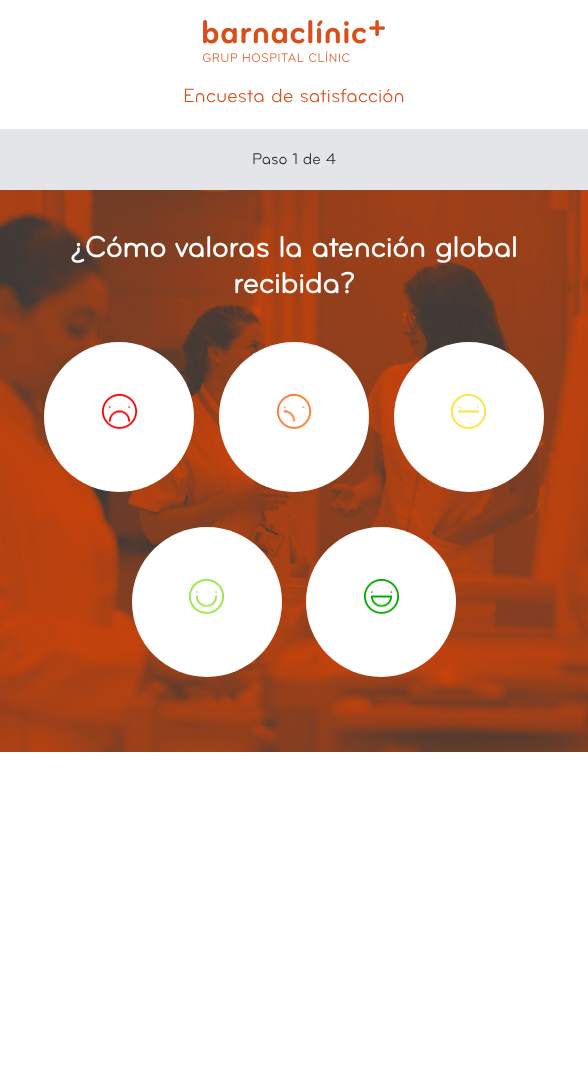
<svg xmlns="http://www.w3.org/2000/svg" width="588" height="1066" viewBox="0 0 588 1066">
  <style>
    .t1 { font: 20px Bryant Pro; fill: #d84f19; }
    .t2 { font: 16px Bryant Pro; fill: #222; }
    .t3 { font: bold 30px Bryant Pro; fill: #fff; }
  </style>
  <rect width="100%" height="100%" fill="#fff"/>
  <image x="203" y="20" width="182" height="42" href="images/1.png"/>
  <text x="183" y="102" class="t1">Encuesta de satisfacción</text>
  <rect x="0" y="129" width="588" height="61" fill="#e3e5e8"/>
  <text x="252" y="164" class="t2">Paso 1 de 4</text>
  <image x="0" y="190" width="588" height="562" href="images/2.png"/>
  <text x="70" y="257" class="t3">¿Cómo valoras la atención global</text>
  <text x="233" y="293" class="t3">recibida?</text>
  <circle cx="119" cy="417" r="75" fill="#fff"/>
  <image x="102" y="394" width="35" height="35" href="images/3.png"/>
  <circle cx="294" cy="417" r="75" fill="#fff"/>
  <image x="277" y="394" width="34" height="35" href="images/4.png"/>
  <circle cx="469" cy="417" r="75" fill="#fff"/>
  <image x="451" y="394" width="35" height="35" href="images/5.png"/>
  <circle cx="207" cy="602" r="75" fill="#fff"/>
  <image x="189" y="579" width="35" height="35" href="images/6.png"/>
  <circle cx="381" cy="602" r="75" fill="#fff"/>
  <image x="364" y="579" width="35" height="35" href="images/7.png"/>
</svg>
